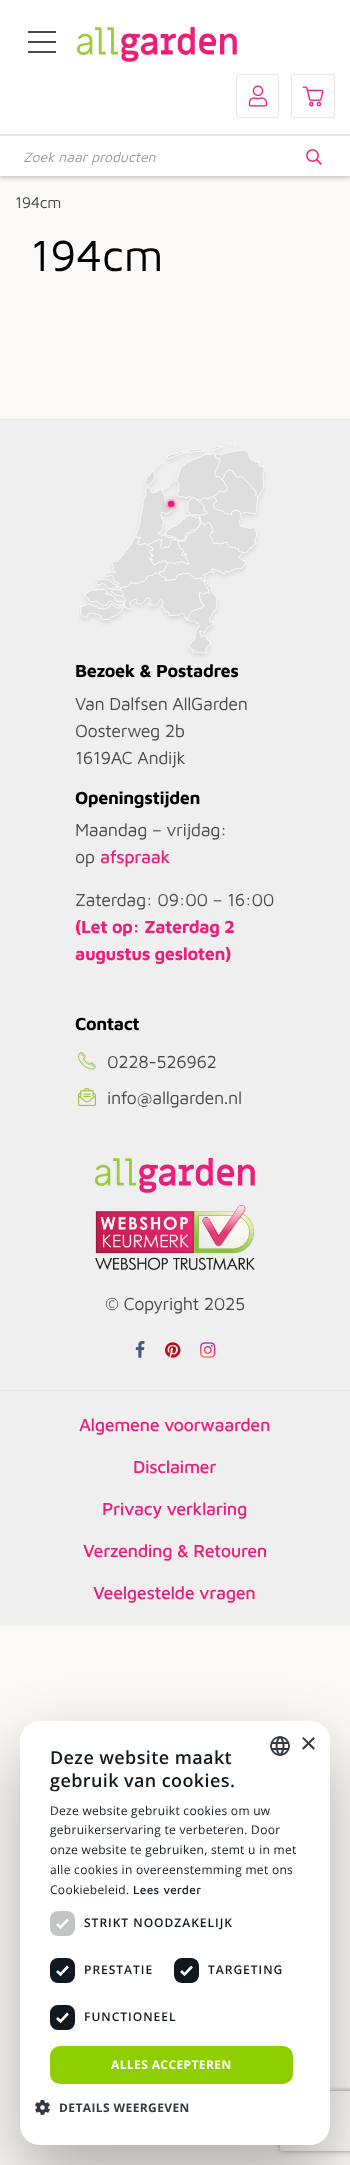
<svg xmlns="http://www.w3.org/2000/svg" width="350" height="2165" viewBox="0 0 350 2165">
  <style>
    .t1 { font: italic 14px Maven Pro; fill: #999; }
    .t2 { font: 16px Maven Pro; letter-spacing: -0.4px; fill: #4a4a4a; }
    .t3 { font: 45px Maven Pro; letter-spacing: -0.4px; fill: #000; }
    .t4 { font: bold 18px Maven Pro; letter-spacing: -0.4px; fill: #000; }
    .t5 { font: 18px Maven Pro; letter-spacing: -0.4px; fill: #4a4a4a; }
    .t6 { font: 500 18px Maven Pro; letter-spacing: -0.4px; fill: #ec1e79; }
    .t7 { font: bold 18px Maven Pro; letter-spacing: -0.4px; fill: #ec1e79; }
    .t8 { font: 29px Liberation Sans; fill: #343b41; }
    .t9 { font: 600 18px Open Sans; letter-spacing: 0.4px; fill: #101820; }
    .t10 { font: 12px Open Sans; letter-spacing: 0.3px; fill: #101820; }
    .t11 { font: 500 12px Maven Pro; letter-spacing: 0.3px; fill: #101820; }
    .t12 { font: 600 12px Open Sans; letter-spacing: 1px; fill: #101820; }
    .t13 { font: bold 12px Open Sans; letter-spacing: 0.4px; fill: #fff; }
    .t14 { font: bold 12px Open Sans; letter-spacing: 0.4px; fill: #343b41; }
  </style>
  <defs>
    <clipPath id="clip1"><path d="M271 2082H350V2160H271ZM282 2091H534C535 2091 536 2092 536 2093V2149C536 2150 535 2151 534 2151H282C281 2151 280 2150 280 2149V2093C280 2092 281 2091 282 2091Z" clip-rule="evenodd"/></clipPath>
  </defs>
  <rect width="100%" height="100%" fill="#fbf9f6"/>
  <rect x="0" y="2" width="350" height="176" fill="#00000033" filter="blur(2px)"/>
  <rect x="0" y="0" width="350" height="134" fill="#fff"/>
  <rect x="0" y="134" width="350" height="2" fill="#e6e6e6"/>
  <rect x="28" y="31" width="28" height="2" fill="#4a4a4a"/>
  <rect x="28" y="41" width="28" height="2" fill="#4a4a4a"/>
  <rect x="28" y="51" width="28" height="2" fill="#4a4a4a"/>
  <image x="77" y="27" width="160" height="35" href="images/1.png"/>
  <rect x="236.5" y="74.5" width="42" height="43" rx="2.5" fill="none" stroke="#e6e6e6"/>
  <image x="248" y="85" width="20" height="22" href="images/2.png"/>
  <rect x="291.5" y="74.5" width="43" height="43" rx="2.5" fill="none" stroke="#e6e6e6"/>
  <image x="302" y="86" width="22" height="21" href="images/3.png"/>
  <rect x="0" y="136" width="350" height="40" fill="#fff"/>
  <text x="23" y="162" class="t1">Zoek naar producten</text>
  <image x="306" y="149" width="16" height="16" href="images/4.png"/>
  <text x="15" y="208" class="t2">194cm</text>
  <text x="30" y="271" class="t3">194cm</text>
  <rect x="0" y="420" width="350" height="970" fill="#efefef"/>
  <rect x="0" y="419" width="350" height="1" fill="#e6e6e6"/>
  <image x="79" y="442" width="187" height="216" href="images/5.png"/>
  <text x="75" y="677" class="t4">Bezoek &amp; Postadres</text>
  <text x="75" y="710" class="t5">Van Dalfsen AllGarden</text>
  <text x="75" y="737" class="t5">Oosterweg 2b</text>
  <text x="75" y="764" class="t5">1619AC Andijk</text>
  <text x="75" y="804" class="t4">Openingstijden</text>
  <text x="75" y="836" class="t5">Maandag – vrijdag:</text>
  <text x="75" y="863" class="t5">op</text>
  <text x="100" y="863" class="t6">afspraak</text>
  <text x="75" y="906" class="t5">Zaterdag: 09:00 – 16:00</text>
  <text x="75" y="933" class="t7">(Let op: Zaterdag 2</text>
  <text x="75" y="960" class="t7">augustus gesloten)</text>
  <text x="75" y="1030" class="t4">Contact</text>
  <image x="78" y="1052" width="18" height="18" href="images/6.png"/>
  <text x="107" y="1068" class="t5">0228-526962</text>
  <image x="78" y="1088" width="18" height="18" href="images/7.png"/>
  <text x="107" y="1104" class="t5">info@allgarden.nl</text>
  <image x="95" y="1158" width="160" height="35" href="images/8.png"/>
  <image x="95" y="1205" width="160" height="65" href="images/9.png"/>
  <text x="105" y="1310" class="t5">© Copyright 2025</text>
  <image x="135" y="1341" width="10" height="17" href="images/10.png"/>
  <image x="165" y="1342" width="16" height="16" href="images/11.png"/>
  <image x="200" y="1342" width="16" height="16" href="images/12.png"/>
  <rect x="0" y="1391" width="350" height="235" fill="#efefef"/>
  <rect x="0" y="1390" width="350" height="1" fill="#e6e6e6"/>
  <text x="79" y="1431" class="t6">Algemene voorwaarden</text>
  <text x="133" y="1473" class="t6">Disclaimer</text>
  <text x="102" y="1515" class="t6">Privacy verklaring</text>
  <text x="83" y="1557" class="t6">Verzending &amp; Retouren</text>
  <text x="93" y="1599" class="t6">Veelgestelde vragen</text>
  <rect x="20" y="1753" width="310" height="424" rx="20" fill="#0000004d" filter="blur(34px)"/>
  <g clip-path="url(#clip1)">
    <rect x="280" y="2091" width="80" height="60" rx="2" fill="#808080" filter="blur(2.5px)"/>
  </g>
  <rect x="20" y="1721" width="310" height="424" rx="20" fill="#fff"/>
  <image x="270" y="1736" width="20" height="20" href="images/13.png"/>
  <text x="300" y="1753" class="t8">×</text>
  <text x="50" y="1764" class="t9">Deze website maakt</text>
  <text x="50" y="1787" class="t9">gebruik van cookies.</text>
  <text x="50" y="1815" class="t10">Deze website gebruikt cookies om uw</text>
  <text x="50" y="1834" class="t10">gebruikerservaring te verbeteren. Door</text>
  <text x="50" y="1854" class="t10">onze website te gebruiken, stemt u in met</text>
  <text x="50" y="1874" class="t10">alle cookies in overeenstemming met ons</text>
  <text x="50" y="1894" class="t10">Cookiebeleid.</text>
  <text x="133" y="1894" class="t11">Lees verder</text>
  <rect x="50" y="1911" width="25" height="25" rx="8" fill="#c1c3c5"/>
  <path d="M57 1924L60.5 1927.5L68 1919.5" fill="none" stroke="#fff" stroke-width="2.6"/>
  <text x="84" y="1927" class="t12">STRIKT NOODZAKELIJK</text>
  <rect x="51" y="1959" width="23" height="23" rx="7" fill="#101820" stroke="#101820" stroke-width="2"/>
  <path d="M57 1971L60.5 1974.5L68 1966.5" fill="none" stroke="#fff" stroke-width="2.6"/>
  <text x="84" y="1974" class="t12">PRESTATIE</text>
  <rect x="175" y="1959" width="23" height="23" rx="7" fill="#101820" stroke="#101820" stroke-width="2"/>
  <path d="M181 1971L184.5 1974.5L192 1966.5" fill="none" stroke="#fff" stroke-width="2.6"/>
  <text x="208" y="1974" class="t12">TARGETING</text>
  <rect x="51" y="2006" width="23" height="23" rx="7" fill="#101820" stroke="#101820" stroke-width="2"/>
  <path d="M57 2018L60.5 2021.5L68 2013.5" fill="none" stroke="#fff" stroke-width="2.6"/>
  <text x="84" y="2021" class="t12">FUNCTIONEEL</text>
  <rect x="50" y="2046" width="243" height="38" rx="10" fill="#8fce00"/>
  <text x="111" y="2069" class="t13">ALLES ACCEPTEREN</text>
  <image x="35" y="2100" width="15" height="15" href="images/14.png"/>
  <text x="59" y="2112" class="t14">DETAILS WEERGEVEN</text>
</svg>
